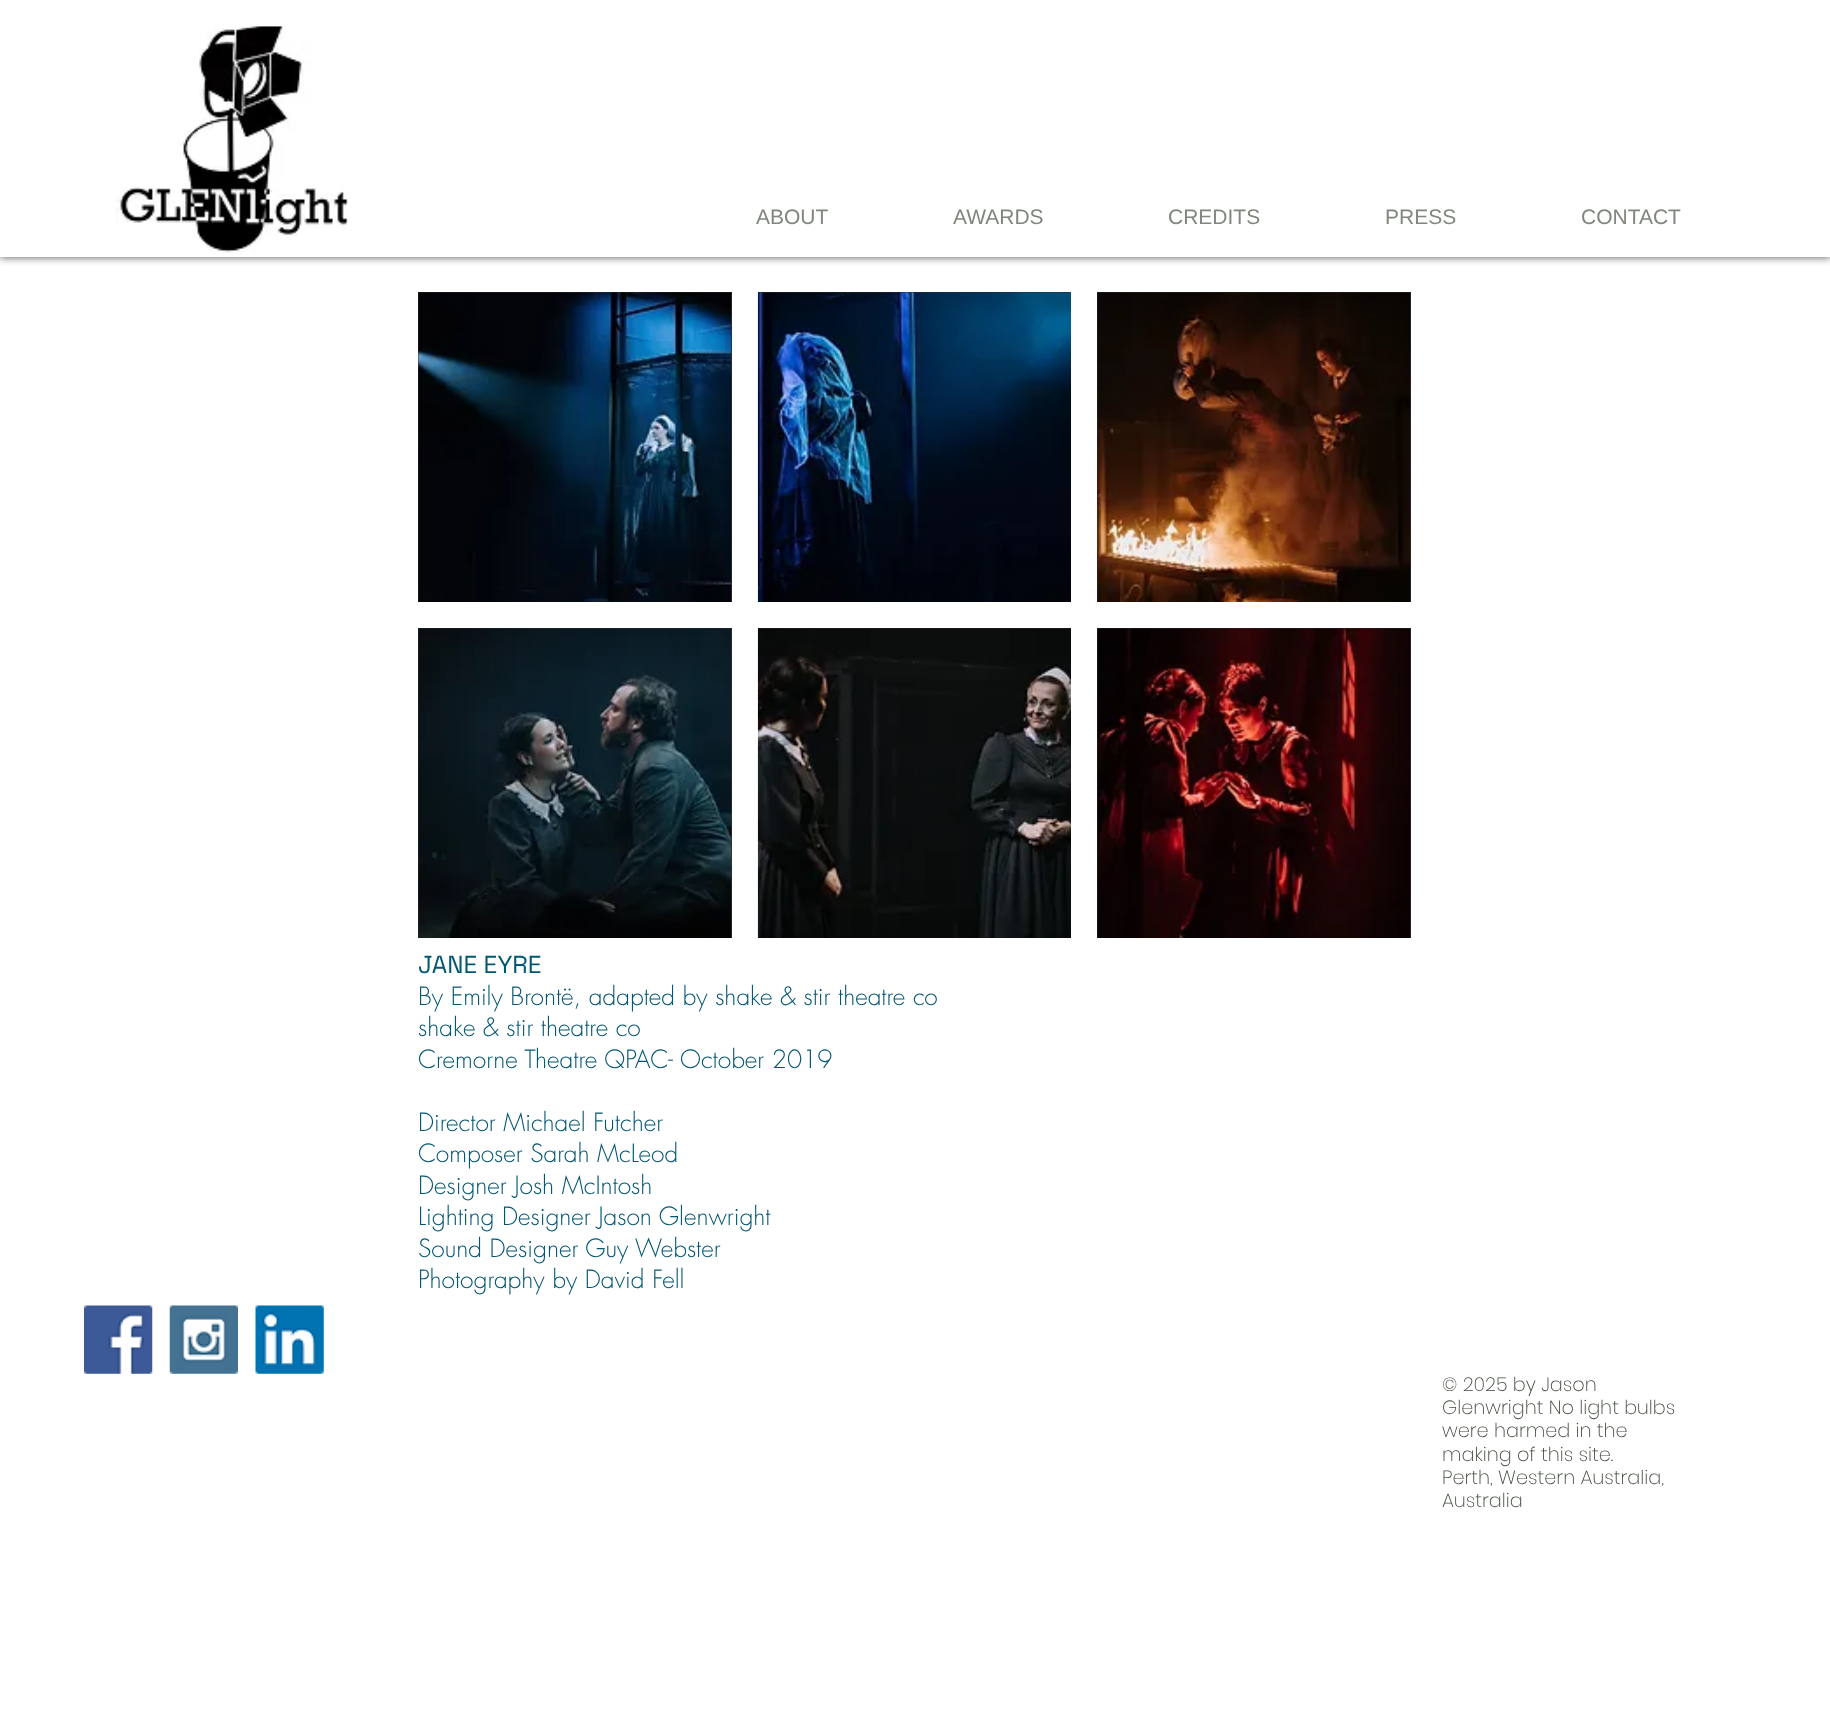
<svg xmlns="http://www.w3.org/2000/svg" width="1830" height="1733" viewBox="0 0 1830 1733">
  <style>
    .t1 { font: 21px Liberation Sans; fill: #80877d; }
    .t2 { font: 24.5px Space Grotesk; fill: #035772; }
    .t3 { font: 300 24.5px futura; fill: #035772; }
    .t4 { font: 200 19.25px Poppins; fill: #444d41; }
  </style>
  <defs>
    <clipPath id="clip1"><rect x="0" y="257" width="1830" height="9"/></clipPath>
  </defs>
  <rect width="100%" height="100%" fill="#fff"/>
  <g clip-path="url(#clip1)">
    <rect x="0" y="0" width="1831" height="257" fill="#000000b3" filter="blur(4.5px)"/>
  </g>
  <image x="116" y="26" width="232" height="227" href="images/1.png"/>
  <text x="756" y="224" class="t1">ABOUT</text>
  <text x="953" y="224" class="t1">AWARDS</text>
  <text x="1168" y="224" class="t1">CREDITS</text>
  <text x="1385" y="224" class="t1">PRESS</text>
  <text x="1581" y="224" class="t1">CONTACT</text>
  <rect x="418" y="292" width="314" height="310" fill="#2f2e2e"/>
  <image x="418" y="292" width="314" height="310" href="images/2.png"/>
  <rect x="758" y="292" width="313" height="1" fill="#2f2e2e"/>
  <image x="757" y="292" width="314" height="310" href="images/3.png"/>
  <rect x="1097" y="292" width="314" height="310" fill="#2f2e2e"/>
  <image x="1097" y="292" width="314" height="310" href="images/4.png"/>
  <rect x="418" y="628" width="314" height="310" fill="#2f2e2e"/>
  <image x="418" y="628" width="314" height="310" href="images/5.png"/>
  <rect x="758" y="628" width="313" height="1" fill="#2f2e2e"/>
  <image x="757" y="628" width="314" height="310" href="images/6.png"/>
  <rect x="1097" y="628" width="314" height="310" fill="#2f2e2e"/>
  <image x="1097" y="628" width="314" height="310" href="images/7.png"/>
  <text x="418" y="973" class="t2">JANE EYRE</text>
  <text x="418" y="1005" class="t3">By Emily Brontë, adapted by shake &amp; stir theatre co</text>
  <text x="418" y="1036" class="t3">shake &amp; stir theatre co</text>
  <text x="418" y="1068" class="t3">Cremorne Theatre QPAC- October 2019</text>
  <text x="418" y="1131" class="t3">Director Michael Futcher</text>
  <text x="418" y="1162" class="t3">Composer Sarah McLeod</text>
  <text x="418" y="1194" class="t3">Designer Josh McIntosh</text>
  <text x="418" y="1225" class="t3">Lighting Designer Jason Glenwright</text>
  <text x="418" y="1257" class="t3">Sound Designer Guy Webster</text>
  <text x="418" y="1288" class="t3">Photography by David Fell</text>
  <image x="84" y="1305" width="69" height="69" href="images/8.png"/>
  <image x="169" y="1305" width="69" height="69" href="images/9.png"/>
  <image x="255" y="1305" width="69" height="69" href="images/10.png"/>
  <text x="1442" y="1391" class="t4">© 2025 by Jason</text>
  <text x="1442" y="1414" class="t4">Glenwright No light bulbs</text>
  <text x="1442" y="1437" class="t4">were harmed in the</text>
  <text x="1442" y="1461" class="t4">making of this site.</text>
  <text x="1442" y="1484" class="t4">Perth, Western Australia,</text>
  <text x="1442" y="1507" class="t4">Australia</text>
</svg>
